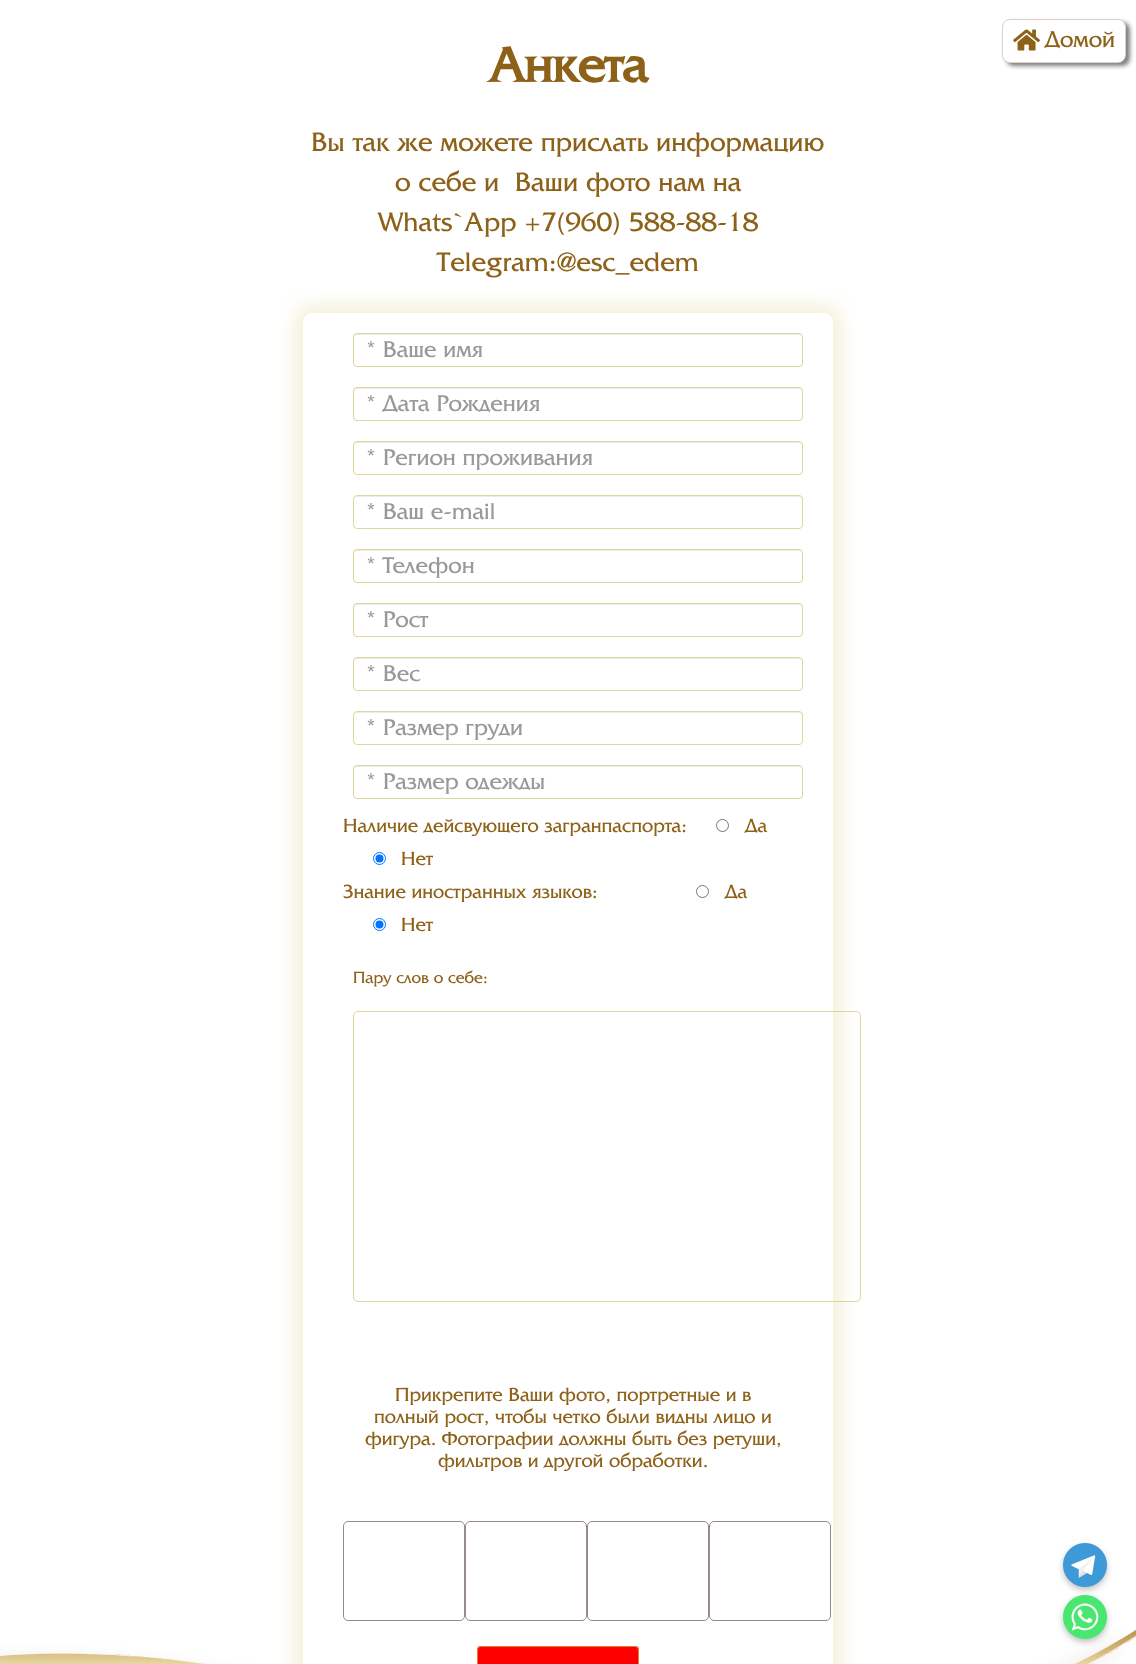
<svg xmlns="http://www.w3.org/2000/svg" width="1136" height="1664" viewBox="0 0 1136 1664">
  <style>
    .t1 { font: 24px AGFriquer; fill: #8e6119; }
    .t2 { font: bold 52px AGFriquer; fill: #8e6119; }
    .t3 { font: 28px AGFriquer; fill: #8e6119; }
    .t4 { font: 24px AGFriquer; fill: #999; }
    .t5 { font: 20px AGFriquer; fill: #8e6119; }
    .t6 { font: 17px AGFriquer; fill: #8e6119; }
  </style>
  <defs>
    <clipPath id="clip1"><path d="M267 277H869V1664H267ZM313 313H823C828.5 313 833 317.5 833 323V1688C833 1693.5 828.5 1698 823 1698H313C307.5 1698 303 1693.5 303 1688V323C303 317.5 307.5 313 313 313Z" clip-rule="evenodd"/></clipPath>
  </defs>
  <rect width="100%" height="100%" fill="#fff"/>
  <rect x="1006" y="22" width="124" height="44" rx="8" fill="#00000080" filter="blur(2px)"/>
  <rect x="1002.5" y="19.5" width="123" height="43" rx="7.5" fill="#fff" stroke="#e0cfc9"/>
  <image x="1013" y="29" width="27" height="22" href="images/1.png"/>
  <text x="1045" y="47" class="t1">Домой</text>
  <text x="489" y="82" class="t2">Анкета</text>
  <text x="311" y="151" class="t3">Вы так же можете прислать информацию</text>
  <text x="395" y="191" class="t3" xml:space="preserve">о себе и  Ваши фото нам на</text>
  <text x="377" y="231" class="t3">Whats`App +7(960) 588-88-18</text>
  <text x="437" y="271" class="t3">Telegram:@esc_edem</text>
  <image x="0" y="1629" width="1136" height="35" href="images/2.png"/>
  <g clip-path="url(#clip1)">
    <rect x="294" y="304" width="548" height="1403" rx="19" fill="#ccc15f38" filter="blur(8.5px)"/>
  </g>
  <path d="M357 335H799C801 335 802 336 802 338C802 336 801 334 799 334H356L354 336V338C354 336 355 335 357 335Z" fill="#ececec"/>
  <rect x="353.5" y="333.5" width="449" height="33" rx="3.5" fill="none" stroke="#ded797"/>
  <text x="366" y="357" class="t4">* Ваше имя</text>
  <path d="M357 389H799C801 389 802 390 802 392C802 390 801 388 799 388H356L354 390V392C354 390 355 389 357 389Z" fill="#ececec"/>
  <rect x="353.5" y="387.5" width="449" height="33" rx="3.5" fill="none" stroke="#ded797"/>
  <text x="366" y="411" class="t4">* Дата Рождения</text>
  <path d="M357 443H799C801 443 802 444 802 446C802 444 801 442 799 442H356L354 444V446C354 444 355 443 357 443Z" fill="#ececec"/>
  <rect x="353.5" y="441.5" width="449" height="33" rx="3.5" fill="none" stroke="#ded797"/>
  <text x="366" y="465" class="t4">* Регион проживания</text>
  <path d="M357 497H799C801 497 802 498 802 500C802 498 801 496 799 496H356L354 498V500C354 498 355 497 357 497Z" fill="#ececec"/>
  <rect x="353.5" y="495.5" width="449" height="33" rx="3.5" fill="none" stroke="#ded797"/>
  <text x="366" y="519" class="t4">* Ваш e-mail</text>
  <path d="M357 551H799C801 551 802 552 802 554C802 552 801 550 799 550H356L354 552V554C354 552 355 551 357 551Z" fill="#ececec"/>
  <rect x="353.5" y="549.5" width="449" height="33" rx="3.5" fill="none" stroke="#ded797"/>
  <text x="366" y="573" class="t4">* Телефон</text>
  <path d="M357 605H799C801 605 802 606 802 608C802 606 801 604 799 604H356L354 606V608C354 606 355 605 357 605Z" fill="#ececec"/>
  <rect x="353.5" y="603.5" width="449" height="33" rx="3.5" fill="none" stroke="#ded797"/>
  <text x="366" y="627" class="t4">* Рост</text>
  <path d="M357 659H799C801 659 802 660 802 662C802 660 801 658 799 658H356L354 660V662C354 660 355 659 357 659Z" fill="#ececec"/>
  <rect x="353.5" y="657.5" width="449" height="33" rx="3.5" fill="none" stroke="#ded797"/>
  <text x="366" y="681" class="t4">* Вес</text>
  <path d="M357 713H799C801 713 802 714 802 716C802 714 801 712 799 712H356L354 714V716C354 714 355 713 357 713Z" fill="#ececec"/>
  <rect x="353.5" y="711.5" width="449" height="33" rx="3.5" fill="none" stroke="#ded797"/>
  <text x="366" y="735" class="t4">* Размер груди</text>
  <path d="M357 767H799C801 767 802 768 802 770C802 768 801 766 799 766H356L354 768V770C354 768 355 767 357 767Z" fill="#ececec"/>
  <rect x="353.5" y="765.5" width="449" height="33" rx="3.5" fill="none" stroke="#ded797"/>
  <text x="366" y="789" class="t4">* Размер одежды</text>
  <text x="343" y="832" class="t5">Наличие дейсвующего загранпаспорта:</text>
  <circle cx="722.5" cy="825.5" r="6" fill="none" stroke="#767676"/>
  <text x="745" y="832" class="t5">Да</text>
  <circle cx="379.5" cy="858.5" r="6" fill="none" stroke="#0075ff"/>
  <circle cx="379.5" cy="858.5" r="4" fill="#0075ff"/>
  <text x="401" y="865" class="t5">Нет</text>
  <text x="343" y="898" class="t5">Знание иностранных языков:</text>
  <circle cx="702.5" cy="891.5" r="6" fill="none" stroke="#767676"/>
  <text x="725" y="898" class="t5">Да</text>
  <circle cx="379.5" cy="924.5" r="6" fill="none" stroke="#0075ff"/>
  <circle cx="379.5" cy="924.5" r="4" fill="#0075ff"/>
  <text x="401" y="931" class="t5">Нет</text>
  <text x="353" y="983" class="t6">Пару слов о себе:</text>
  <rect x="353.5" y="1011.5" width="507" height="290" rx="4.5" fill="none" stroke="#ccc15fa6"/>
  <text x="395" y="1401" class="t5">Прикрепите Ваши фото, портретные и в</text>
  <text x="374" y="1423" class="t5">полный рост, чтобы четко были видны лицо и</text>
  <text x="365" y="1445" class="t5">фигура. Фотографии должны быть без ретуши,</text>
  <text x="438" y="1467" class="t5">фильтров и другой обработки.</text>
  <rect x="343.5" y="1521.5" width="121" height="99" rx="4.5" fill="none" stroke="#968991"/>
  <rect x="465.5" y="1521.5" width="121" height="99" rx="4.5" fill="none" stroke="#968991"/>
  <rect x="587.5" y="1521.5" width="121" height="99" rx="4.5" fill="none" stroke="#968991"/>
  <rect x="709.5" y="1521.5" width="121" height="99" rx="4.5" fill="none" stroke="#968991"/>
  <rect x="477" y="1646" width="162" height="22" rx="4" fill="#f00"/>
  <rect x="477.5" y="1646.5" width="161" height="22" rx="3.5" fill="none" stroke="#ccc15fa6"/>
  <rect x="1063" y="1546" width="44" height="44" rx="22" fill="#00000040" filter="blur(3px)"/>
  <image x="1063" y="1543" width="44" height="44" href="images/3.png"/>
  <rect x="1063" y="1598" width="44" height="44" rx="22" fill="#00000040" filter="blur(3px)"/>
  <image x="1063" y="1595" width="44" height="44" href="images/4.png"/>
</svg>
